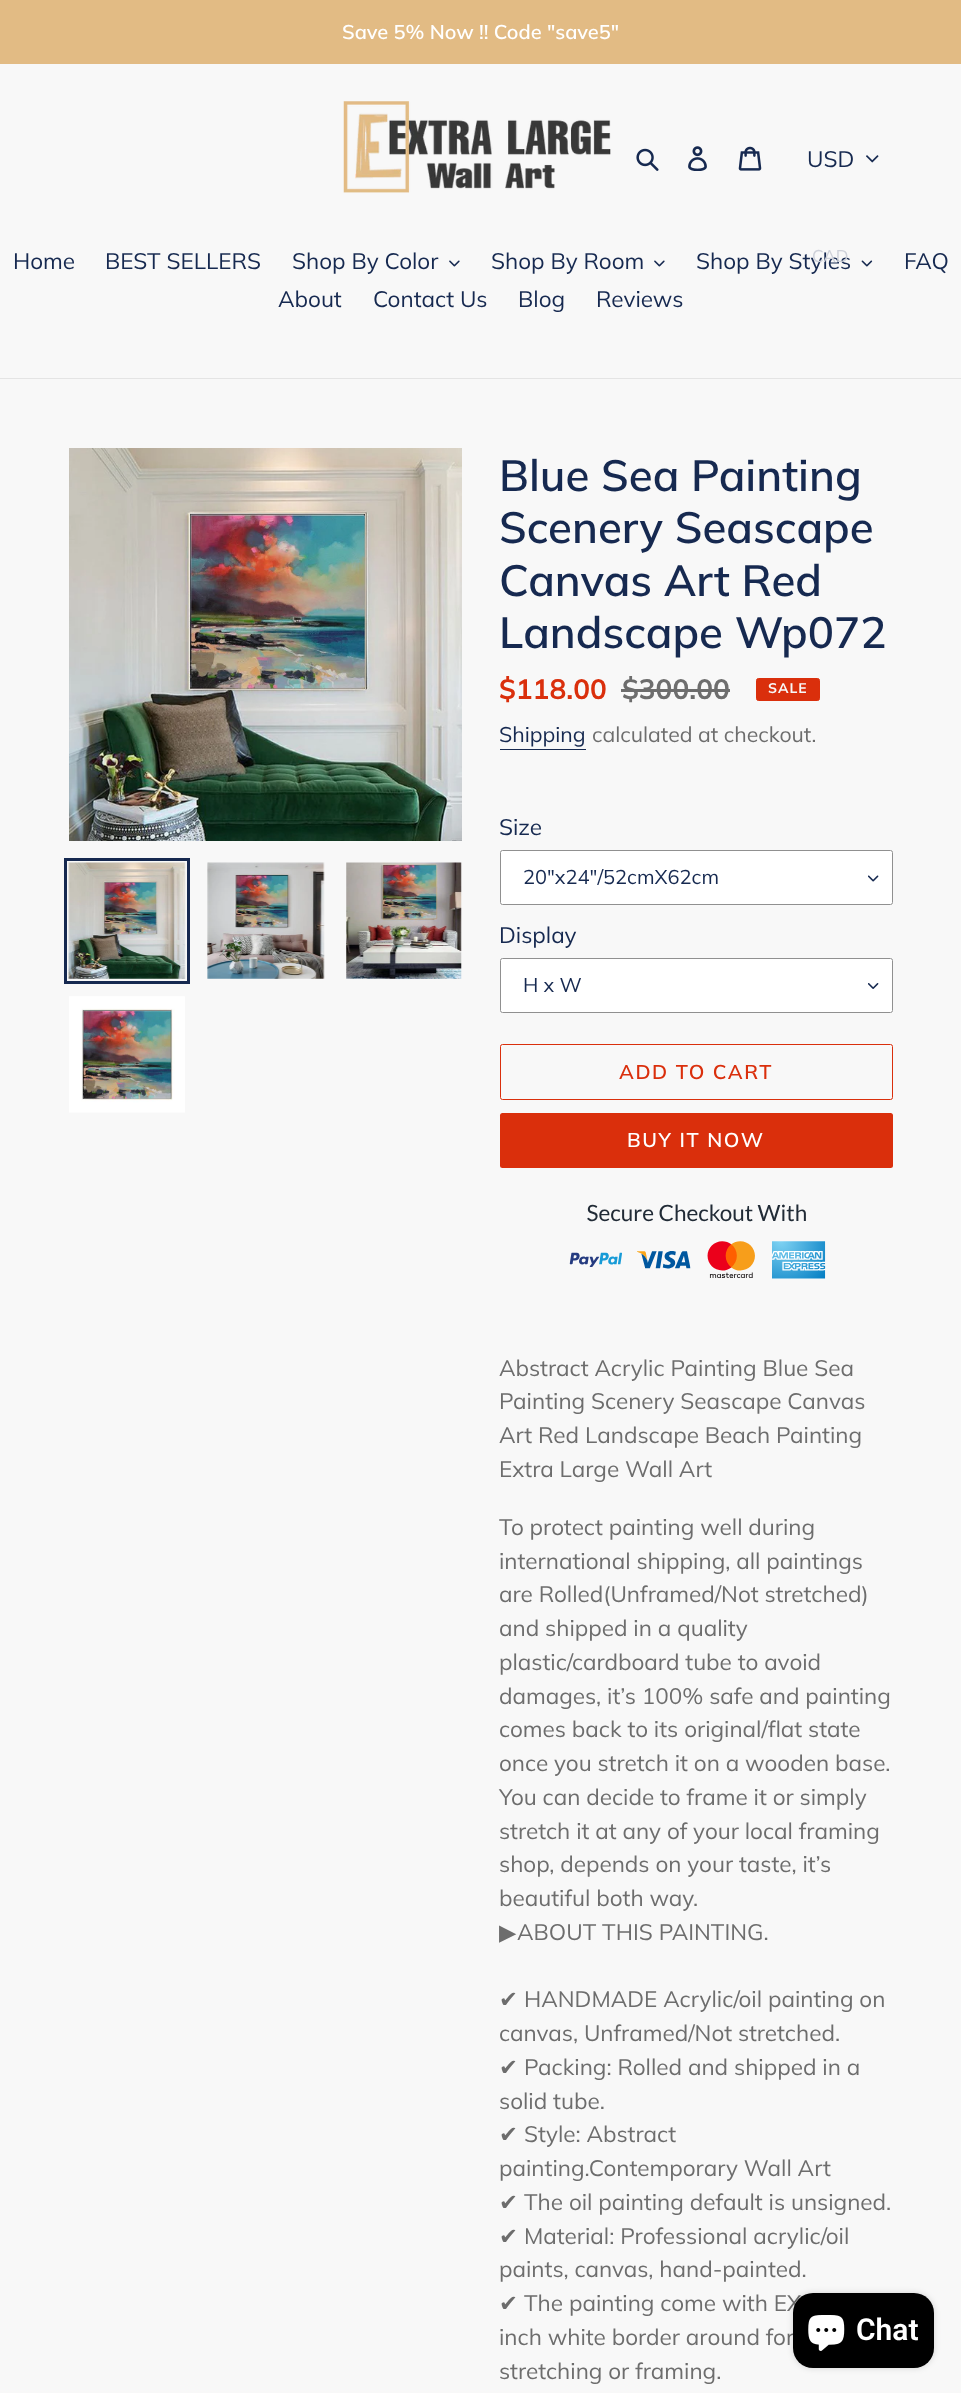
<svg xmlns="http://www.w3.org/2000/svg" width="961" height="2393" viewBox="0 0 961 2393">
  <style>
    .t1 { font: 600 20px Muli; fill: #fff; }
    .t2 { font: 22.5px Muli; fill: #162950; }
    .t3 { font: 17px Muli; fill: #ced1d9; }
    .t4 { font: 600 43.75px Muli; fill: #162950; }
    .t5 { font: bold 28px Muli; fill: #da2f0c; }
    .t6 { font: bold 28px Muli; fill: #6d6d6d; }
    .t7 { font: bold 14px Muli; letter-spacing: 1px; fill: #f8f8f8; }
    .t8 { font: 21.25px Muli; fill: #162950; }
    .t9 { font: 21.25px Muli; fill: #6d6d6d; }
    .t10 { font: 20px Muli; fill: #162950; }
    .t11 { font: 600 20px Muli; letter-spacing: 1.6px; fill: #da2f0c; }
    .t12 { font: 600 20px Muli; letter-spacing: 1.6px; fill: #fff; }
    .t13 { font: 22.5px Muli; fill: #6d6d6d; }
    .t14 { font: 22.5px DejaVu Sans; fill: #6d6d6d; }
    .t15 { font: 600 30px Roboto; fill: #fff; }
  </style>
  <rect width="100%" height="100%" fill="#f8f8f8"/>
  <rect x="0" y="0" width="961" height="64" fill="#e2bb84"/>
  <text x="342" y="39" class="t1">Save 5% Now !! Code "save5"</text>
  <image x="343" y="101" width="268" height="92" href="images/1.png"/>
  <image x="636" y="148" width="23" height="23" href="images/2.png"/>
  <image x="688" y="146" width="19" height="25" href="images/3.png"/>
  <image x="738" y="146" width="24" height="25" href="images/4.png"/>
  <text x="807" y="167" class="t2">USD</text>
  <text x="696" y="269" class="t2">Shop By Styles</text>
  <text x="812" y="262" class="t3">CAD</text>
  <image x="866" y="155" width="13" height="8" href="images/5.png"/>
  <rect x="0" y="378" width="961" height="1" fill="#e4e4e4"/>
  <text x="13" y="269" class="t2">Home</text>
  <text x="105" y="269" class="t2">BEST SELLERS</text>
  <text x="292" y="269" class="t2">Shop By Color</text>
  <image x="449" y="260" width="11" height="7" href="images/6.png"/>
  <text x="491" y="269" class="t2">Shop By Room</text>
  <image x="654" y="260" width="11" height="7" href="images/6.png"/>
  <image x="861" y="260" width="12" height="7" href="images/7.png"/>
  <text x="904" y="269" class="t2">FAQ</text>
  <text x="278" y="307" class="t2">About</text>
  <text x="373" y="307" class="t2">Contact Us</text>
  <text x="518" y="307" class="t2">Blog</text>
  <text x="596" y="307" class="t2">Reviews</text>
  <image x="69" y="448" width="393" height="393" href="images/8.png"/>
  <rect x="65.5" y="859.5" width="123" height="123" fill="none" stroke="#162950" stroke-width="3"/>
  <image x="68" y="862" width="118" height="117" href="images/9.png"/>
  <image x="207" y="862" width="118" height="117" href="images/10.png"/>
  <image x="346" y="862" width="116" height="117" href="images/11.png"/>
  <image x="69" y="996" width="116" height="117" href="images/12.png"/>
  <text x="499" y="491" class="t4">Blue Sea Painting</text>
  <text x="499" y="543" class="t4">Scenery Seascape</text>
  <text x="499" y="596" class="t4">Canvas Art Red</text>
  <text x="499" y="648" class="t4">Landscape Wp072</text>
  <text x="499" y="699" class="t5">$118.00</text>
  <text x="622" y="699" class="t6">$300.00</text>
  <rect x="621" y="689" width="109" height="3" fill="#6d6d6d"/>
  <rect x="756.5" y="678.5" width="63" height="22" rx="2" fill="#da2f0c" stroke="#da2f0c"/>
  <text x="768" y="693" class="t7">SALE</text>
  <text x="499" y="742" class="t8">Shipping</text>
  <rect x="500" y="749" width="86" height="1" fill="#162950"/>
  <text x="592" y="742" class="t9">calculated at checkout.</text>
  <text x="499" y="835" class="t2">Size</text>
  <rect x="500" y="850" width="393" height="55" rx="2.5" fill="#fff"/>
  <image x="868" y="875" width="11" height="7" href="images/13.png"/>
  <rect x="500.5" y="850.5" width="392" height="54" rx="2" fill="none" stroke="#909090"/>
  <text x="523" y="884" class="t10">20"x24"/52cmX62cm</text>
  <text x="499" y="943" class="t2">Display</text>
  <rect x="500" y="958" width="393" height="55" rx="2.5" fill="#fff"/>
  <image x="868" y="983" width="11" height="6" href="images/14.png"/>
  <rect x="500.5" y="958.5" width="392" height="54" rx="2" fill="none" stroke="#909090"/>
  <text x="523" y="992" class="t10">H x W</text>
  <rect x="500.5" y="1044.5" width="392" height="55" rx="2" fill="none" stroke="#da2f0c"/>
  <text x="619" y="1079" class="t11">ADD TO CART</text>
  <rect x="500" y="1113" width="393" height="55" rx="2.5" fill="#da2f0c"/>
  <text x="627" y="1147" class="t12">BUY IT NOW</text>
  <image x="569" y="1204" width="257" height="75" href="images/15.png"/>
  <text x="499" y="1376" class="t13">Abstract Acrylic Painting Blue Sea</text>
  <text x="499" y="1409" class="t13">Painting Scenery Seascape Canvas</text>
  <text x="499" y="1443" class="t13">Art Red Landscape Beach Painting</text>
  <text x="499" y="1477" class="t13">Extra Large Wall Art</text>
  <text x="499" y="1535" class="t13">To protect painting well during</text>
  <text x="499" y="1569" class="t13">international shipping, all paintings</text>
  <text x="499" y="1602" class="t13">are Rolled(Unframed/Not stretched)</text>
  <text x="499" y="1636" class="t13">and shipped in a quality</text>
  <text x="499" y="1670" class="t13">plastic/cardboard tube to avoid</text>
  <text x="499" y="1704" class="t13">damages, it’s 100% safe and painting</text>
  <text x="499" y="1737" class="t13">comes back to its original/flat state</text>
  <text x="499" y="1771" class="t13">once you stretch it on a wooden base.</text>
  <text x="499" y="1805" class="t13">You can decide to frame it or simply</text>
  <text x="499" y="1839" class="t13">stretch it at any of your local framing</text>
  <text x="499" y="1872" class="t13">shop, depends on your taste, it’s</text>
  <text x="499" y="1906" class="t13">beautiful both way.</text>
  <text x="499" y="1940" class="t14">▶</text>
  <text x="517" y="1940" class="t13">ABOUT THIS PAINTING.</text>
  <text x="499" y="2007" class="t14">✔</text>
  <text x="524" y="2007" class="t13">HANDMADE Acrylic/oil painting on</text>
  <text x="499" y="2041" class="t13">canvas, Unframed/Not stretched.</text>
  <text x="499" y="2075" class="t14">✔</text>
  <text x="524" y="2075" class="t13">Packing: Rolled and shipped in a</text>
  <text x="499" y="2109" class="t13">solid tube.</text>
  <text x="499" y="2142" class="t14">✔</text>
  <text x="524" y="2142" class="t13">Style: Abstract</text>
  <text x="499" y="2176" class="t13">painting.Contemporary Wall Art</text>
  <text x="499" y="2210" class="t14">✔</text>
  <text x="524" y="2210" class="t13">The oil painting default is unsigned.</text>
  <text x="499" y="2244" class="t14">✔</text>
  <text x="524" y="2244" class="t13">Material: Professional acrylic/oil</text>
  <text x="499" y="2277" class="t13">paints, canvas, hand-painted.</text>
  <text x="499" y="2311" class="t14">✔</text>
  <text x="524" y="2311" class="t13">The painting come with EX</text>
  <text x="499" y="2345" class="t13">inch white border around for</text>
  <text x="499" y="2379" class="t13">stretching or framing.</text>
  <rect x="793" y="2293" width="141" height="75" rx="20" fill="#00000026" filter="blur(3px)"/>
  <rect x="793" y="2293" width="141" height="75" rx="20" fill="#000"/>
  <image x="808" y="2315" width="37" height="36" href="images/16.png"/>
  <text x="856" y="2340" class="t15">Chat</text>
</svg>
